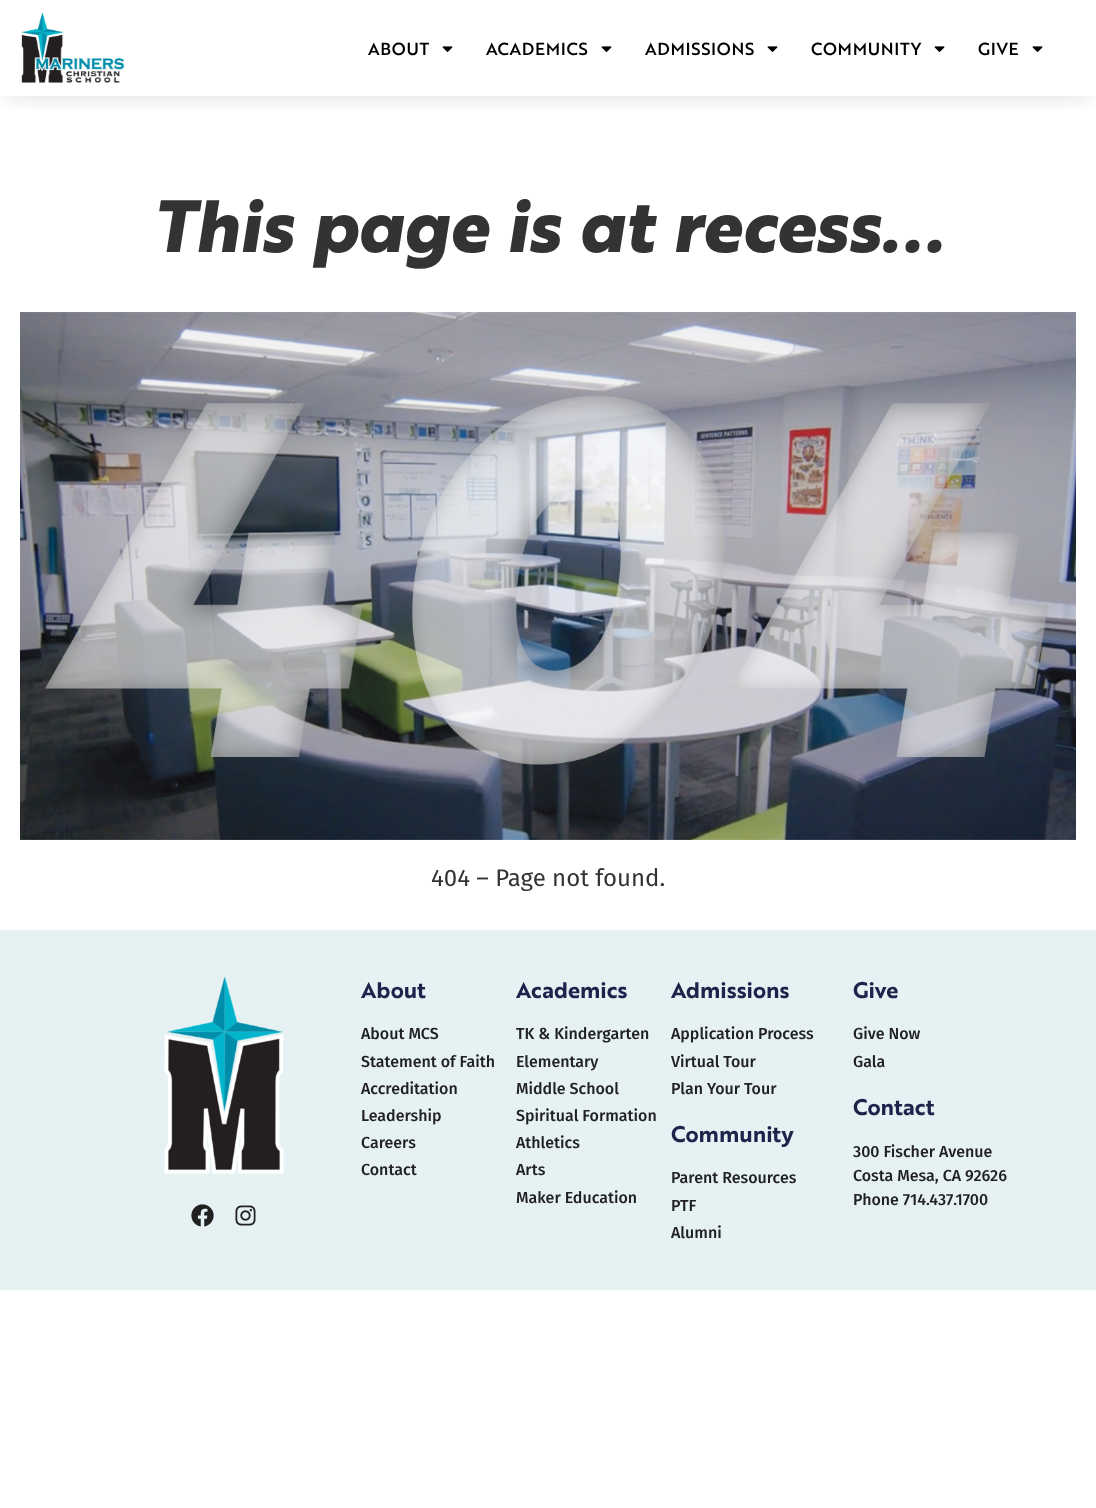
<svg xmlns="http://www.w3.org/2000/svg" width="1096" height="1508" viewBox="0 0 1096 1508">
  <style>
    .t1 { font: 500 17px 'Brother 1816'; fill: #000; }
    .t2 { font: italic 800 72px 'Brother 1816'; fill: #333; }
    .t3 { font: 24px Fira Sans; fill: #333; }
    .t4 { font: bold 22px 'Brother 1816'; fill: #1c244b; }
    .t5 { font: 500 16px Fira Sans; fill: #212121; }
  </style>
  <defs>
    <clipPath id="clip1"><rect x="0" y="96" width="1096" height="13"/></clipPath>
  </defs>
  <rect width="100%" height="100%" fill="#fff"/>
  <g clip-path="url(#clip1)">
    <rect x="6" y="6" width="1084" height="84" fill="#00000033" filter="blur(15px)"/>
  </g>
  <image x="21" y="12" width="104" height="71" href="images/1.png"/>
  <text x="368" y="55" class="t1">ABOUT</text>
  <image x="442" y="46" width="11" height="6" href="images/2.png"/>
  <text x="486" y="55" class="t1">ACADEMICS</text>
  <image x="601" y="46" width="11" height="6" href="images/2.png"/>
  <text x="645" y="55" class="t1">ADMISSIONS</text>
  <image x="767" y="46" width="11" height="6" href="images/2.png"/>
  <text x="811" y="55" class="t1">COMMUNITY</text>
  <image x="934" y="46" width="11" height="6" href="images/2.png"/>
  <text x="978" y="55" class="t1">GIVE</text>
  <image x="1032" y="46" width="11" height="6" href="images/2.png"/>
  <text x="152" y="252" class="t2">This page is at recess...</text>
  <image x="20" y="312" width="1056" height="528" href="images/3.png"/>
  <text x="431" y="886" class="t3">404 – Page not found.</text>
  <rect x="0" y="930" width="1096" height="360" fill="#e6f1f3"/>
  <image x="164" y="976" width="120" height="198" href="images/4.png"/>
  <image x="191" y="1204" width="23" height="23" href="images/5.png"/>
  <image x="235" y="1205" width="21" height="21" href="images/6.png"/>
  <text x="361" y="998" class="t4">About</text>
  <text x="361" y="1039" class="t5">About MCS</text>
  <text x="361" y="1067" class="t5">Statement of Faith</text>
  <text x="361" y="1094" class="t5">Accreditation</text>
  <text x="361" y="1121" class="t5">Leadership</text>
  <text x="361" y="1148" class="t5">Careers</text>
  <text x="361" y="1175" class="t5">Contact</text>
  <text x="516" y="998" class="t4">Academics</text>
  <text x="516" y="1039" class="t5">TK &amp; Kindergarten</text>
  <text x="516" y="1067" class="t5">Elementary</text>
  <text x="516" y="1094" class="t5">Middle School</text>
  <text x="516" y="1121" class="t5">Spiritual Formation</text>
  <text x="516" y="1148" class="t5">Athletics</text>
  <text x="516" y="1175" class="t5">Arts</text>
  <text x="516" y="1203" class="t5">Maker Education</text>
  <text x="671" y="998" class="t4">Admissions</text>
  <text x="671" y="1039" class="t5">Application Process</text>
  <text x="671" y="1067" class="t5">Virtual Tour</text>
  <text x="671" y="1094" class="t5">Plan Your Tour</text>
  <text x="671" y="1142" class="t4">Community</text>
  <text x="671" y="1183" class="t5">Parent Resources</text>
  <text x="671" y="1211" class="t5">PTF</text>
  <text x="671" y="1238" class="t5">Alumni</text>
  <text x="853" y="998" class="t4">Give</text>
  <text x="853" y="1039" class="t5">Give Now</text>
  <text x="853" y="1067" class="t5">Gala</text>
  <text x="853" y="1115" class="t4">Contact</text>
  <text x="853" y="1157" class="t5">300 Fischer Avenue</text>
  <text x="853" y="1181" class="t5">Costa Mesa, CA 92626</text>
  <text x="853" y="1205" class="t5">Phone 714.437.1700</text>
</svg>
